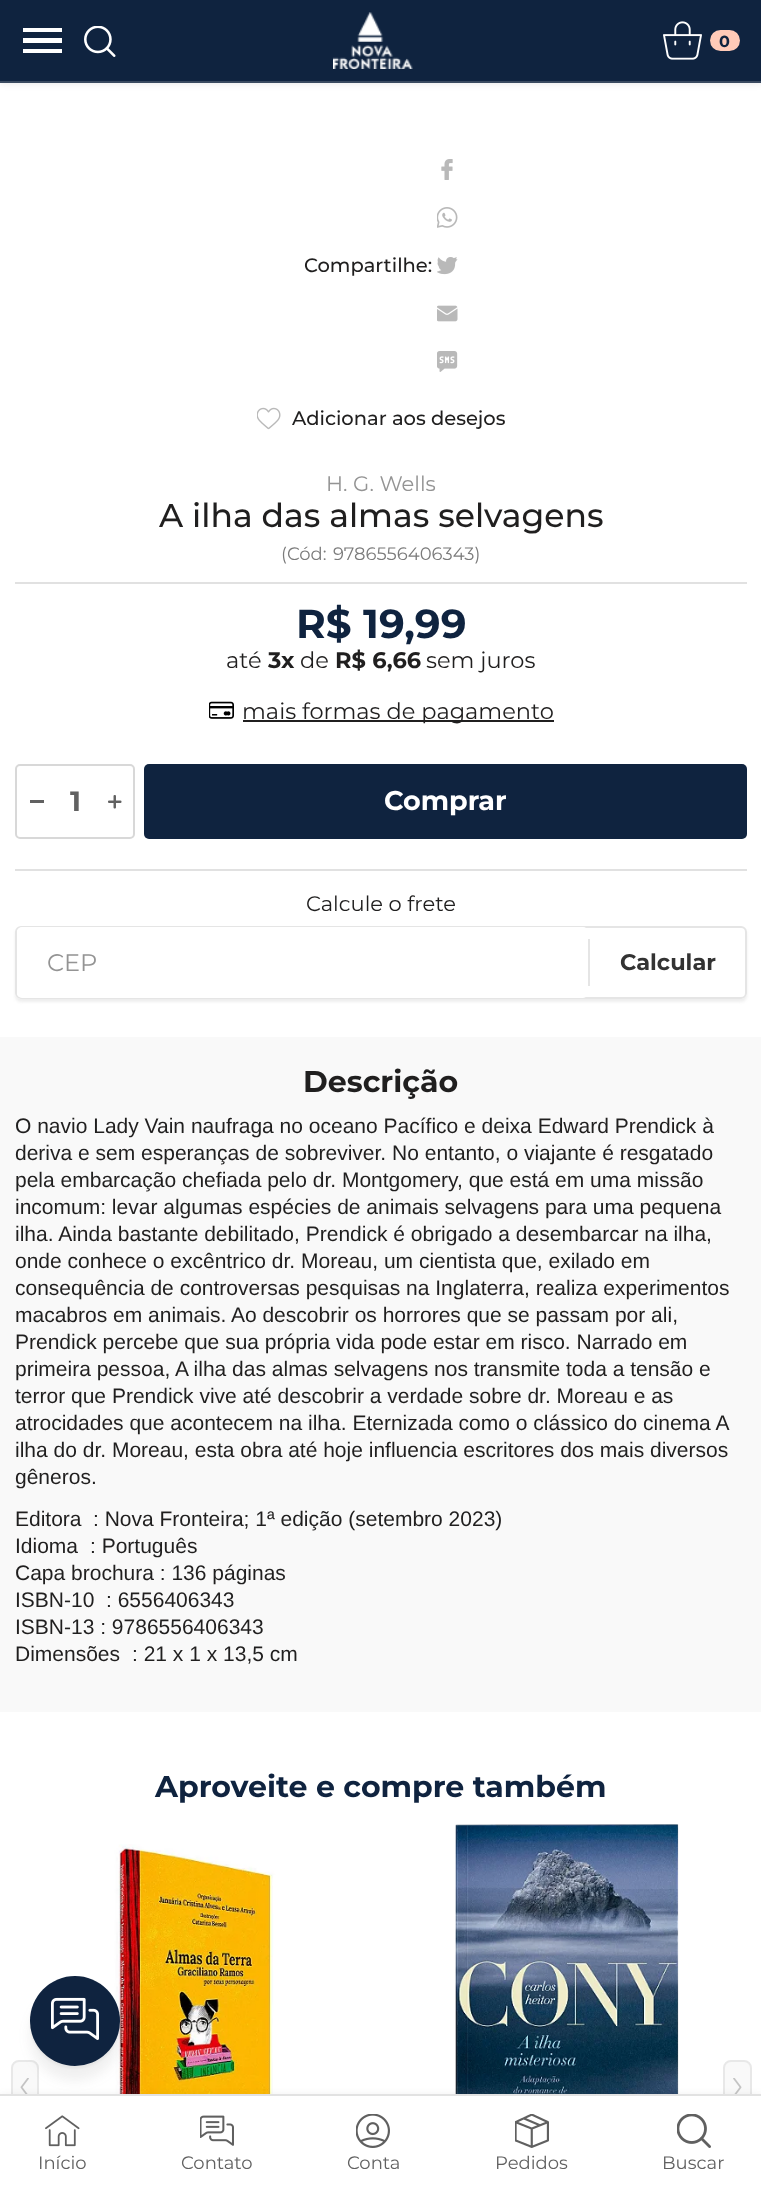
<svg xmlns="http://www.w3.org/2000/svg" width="761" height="2200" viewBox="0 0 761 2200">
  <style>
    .t1 { font: bold 16px Montserrat; fill: #0f233f; }
    .t2 { font: 500 19.5px Montserrat; fill: #201f1f; }
    .t3 { font: 21px Montserrat; fill: #949494; }
    .t4 { font: 500 33px Montserrat; fill: #201f1f; }
    .t5 { font: 18px Montserrat; fill: #7b7b7b; }
    .t6 { font: bold 40.5px Montserrat; fill: #0f233f; }
    .t7 { font: 22.5px Montserrat; fill: #201f1f; }
    .t8 { font: bold 22.5px Montserrat; fill: #201f1f; }
    .t9 { font: bold 28px Montserrat; fill: #616161; }
    .t10 { font: bold 27px Montserrat; fill: #fff; }
    .t11 { font: 21px Montserrat; fill: #201f1f; }
    .t12 { font: 24px Montserrat; fill: #949494; }
    .t13 { font: bold 22.5px Montserrat; fill: #333; }
    .t14 { font: bold 30px Montserrat; fill: #201f1f; }
    .t15 { font: 21px Liberation Sans; fill: #201f1f; }
    .t16 { font: bold 30px Montserrat; fill: #0f233f; }
    .t17 { font: 18px Montserrat; fill: #616161; }
  </style>
  <defs>
    <clipPath id="clip1"><path d="M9 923H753V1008H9ZM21 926H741C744.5 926 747 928.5 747 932V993C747 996.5 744.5 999 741 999H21C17.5 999 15 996.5 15 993V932C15 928.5 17.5 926 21 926Z" clip-rule="evenodd"/></clipPath>
  </defs>
  <rect width="100%" height="100%" fill="#fff"/>
  <rect x="0" y="2" width="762" height="82" fill="#52525221" filter="blur(3px)"/>
  <rect x="0" y="0" width="761" height="81" fill="#0f233f"/>
  <rect x="0" y="81" width="761" height="2" fill="#3a4a60"/>
  <rect x="23" y="49" width="39" height="4" fill="#fff"/>
  <rect x="23" y="38" width="39" height="5" fill="#fff"/>
  <rect x="23" y="28" width="39" height="4" fill="#fff"/>
  <image x="84" y="26" width="32" height="31" href="images/1.png"/>
  <image x="333" y="12" width="80" height="57" href="images/2.png"/>
  <image x="663" y="21" width="39" height="39" href="images/3.png"/>
  <rect x="710" y="30" width="30" height="21" rx="10.5" fill="#ffcab8"/>
  <text x="719" y="47" class="t1">0</text>
  <text x="304" y="272" class="t2">Compartilhe:</text>
  <image x="441" y="159" width="12" height="21" href="images/4.png"/>
  <image x="437" y="207" width="21" height="21" href="images/5.png"/>
  <image x="437" y="257" width="21" height="18" href="images/6.png"/>
  <image x="437" y="305" width="21" height="17" href="images/7.png"/>
  <image x="437" y="351" width="21" height="21" href="images/8.png"/>
  <image x="257" y="407" width="24" height="23" href="images/9.png"/>
  <text x="292" y="425" class="t2">Adicionar aos desejos</text>
  <rect x="15" y="582" width="732" height="2" fill="#e1e1e1"/>
  <text x="326" y="491" class="t3">H. G. Wells</text>
  <text x="159" y="527" class="t4">A ilha das almas selvagens</text>
  <text x="281" y="560" class="t5">(Cód:</text>
  <text x="333" y="560" class="t5">9786556406343)</text>
  <text x="296" y="638" class="t6">R$ 19,99</text>
  <text x="226" y="668" class="t7">até</text>
  <text x="268" y="668" class="t8">3x</text>
  <text x="300" y="668" class="t7">de</text>
  <text x="335" y="668" class="t8">R$ 6,66</text>
  <text x="426" y="668" class="t7">sem juros</text>
  <image x="209" y="701" width="25" height="18" href="images/10.png"/>
  <rect x="243" y="720" width="311" height="2" fill="#201f1f"/>
  <text x="242" y="719" class="t7">mais formas de pagamento</text>
  <rect x="16" y="765" width="118" height="73" rx="4" fill="none" stroke="#d8d8d8" stroke-width="2"/>
  <rect x="30" y="800" width="14" height="3" fill="#616161"/>
  <text x="70" y="811" class="t9">1</text>
  <image x="108" y="795" width="14" height="14" href="images/11.png"/>
  <rect x="144" y="764" width="603" height="75" rx="5" fill="#0f233f"/>
  <text x="384" y="810" class="t10">Comprar</text>
  <rect x="15" y="869" width="732" height="2" fill="#e1e1e1"/>
  <text x="306" y="911" class="t11">Calcule o frete</text>
  <g clip-path="url(#clip1)">
    <rect x="15" y="929" width="732" height="73" rx="6" fill="#cdcdcd59" filter="blur(1.5px)"/>
  </g>
  <rect x="16" y="927" width="730" height="71" rx="5" fill="none" stroke="#e5e5e5" stroke-width="2"/>
  <rect x="17" y="927" width="571" height="71" rx="5" fill="#fff"/>
  <text x="47" y="971" class="t12">CEP</text>
  <rect x="588" y="939" width="2" height="47" fill="#e5e5e5"/>
  <text x="620" y="970" class="t13">Calcular</text>
  <rect x="0" y="1037" width="761" height="675" fill="#f9f9f9"/>
  <text x="303" y="1092" class="t14">Descrição</text>
  <text x="15" y="1133" class="t15">O navio Lady Vain naufraga no oceano Pacífico e deixa Edward Prendick à</text>
  <text x="15" y="1160" class="t15">deriva e sem esperanças de sobreviver. No entanto, o viajante é resgatado</text>
  <text x="15" y="1187" class="t15">pela embarcação chefiada pelo dr. Montgomery, que está em uma missão</text>
  <text x="15" y="1214" class="t15">incomum: levar algumas espécies de animais selvagens para uma pequena</text>
  <text x="15" y="1241" class="t15">ilha. Ainda bastante debilitado, Prendick é obrigado a desembarcar na ilha,</text>
  <text x="15" y="1268" class="t15">onde conhece o excêntrico dr. Moreau, um cientista que, exilado em</text>
  <text x="15" y="1295" class="t15">consequência de controversas pesquisas na Inglaterra, realiza experimentos</text>
  <text x="15" y="1322" class="t15">macabros em animais. Ao descobrir os horrores que se passam por ali,</text>
  <text x="15" y="1349" class="t15">Prendick percebe que sua própria vida pode estar em risco. Narrado em</text>
  <text x="15" y="1376" class="t15">primeira pessoa, A ilha das almas selvagens nos transmite toda a tensão e</text>
  <text x="15" y="1403" class="t15">terror que Prendick vive até descobrir a verdade sobre dr. Moreau e as</text>
  <text x="15" y="1430" class="t15">atrocidades que acontecem na ilha. Eternizada como o clássico do cinema A</text>
  <text x="15" y="1457" class="t15">ilha do dr. Moreau, esta obra até hoje influencia escritores dos mais diversos</text>
  <text x="15" y="1484" class="t15">gêneros.</text>
  <text x="15" y="1526" class="t15">Editora</text>
  <text x="93" y="1526" class="t15">:  Nova Fronteira; 1ª edição (setembro 2023)</text>
  <text x="15" y="1553" class="t15">Idioma</text>
  <text x="90" y="1553" class="t15">:  Português</text>
  <text x="15" y="1580" class="t15">Capa brochura : 136 páginas</text>
  <text x="15" y="1607" class="t15">ISBN-10</text>
  <text x="106" y="1607" class="t15">:  6556406343</text>
  <text x="15" y="1634" class="t15">ISBN-13 : 9786556406343</text>
  <text x="15" y="1661" class="t15">Dimensões</text>
  <text x="132" y="1661" class="t15">:  21 x 1 x 13,5 cm</text>
  <text x="155" y="1797" class="t16">Aproveite e compre também</text>
  <rect x="12" y="2061" width="26" height="53" rx="7" fill="#f9f9f9" stroke="#e8e8e8" stroke-width="2"/>
  <image x="20" y="2078" width="9" height="16" href="images/12.png"/>
  <image x="92" y="1844" width="213" height="250" href="images/13.png"/>
  <image x="455" y="1824" width="224" height="270" href="images/14.png"/>
  <rect x="724" y="2061" width="27" height="53" rx="7" fill="#f9f9f9" stroke="#e8e8e8" stroke-width="2"/>
  <image x="733" y="2078" width="9" height="16" href="images/15.png"/>
  <rect x="30" y="1991" width="90" height="90" rx="45" fill="#6767671a" filter="blur(6px)"/>
  <rect x="30" y="1979" width="90" height="90" rx="45" fill="#0000000a" filter="blur(1px)"/>
  <circle cx="75" cy="2021" r="45" fill="#0f233f"/>
  <image x="51" y="1997" width="48" height="43" href="images/16.png"/>
  <rect x="0" y="2094" width="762" height="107" fill="#52525214" filter="blur(3px)"/>
  <rect x="0" y="2096" width="761" height="104" fill="#fff"/>
  <rect x="0" y="2094" width="761" height="2" fill="#e2e2e2"/>
  <image x="45" y="2115" width="35" height="32" href="images/17.png"/>
  <text x="38" y="2169" class="t17">Início</text>
  <image x="200" y="2115" width="34" height="31" href="images/18.png"/>
  <text x="181" y="2169" class="t17">Contato</text>
  <image x="356" y="2114" width="34" height="34" href="images/19.png"/>
  <text x="347" y="2169" class="t17">Conta</text>
  <image x="515" y="2114" width="34" height="34" href="images/20.png"/>
  <text x="495" y="2169" class="t17">Pedidos</text>
  <image x="677" y="2114" width="34" height="34" href="images/21.png"/>
  <text x="662" y="2169" class="t17">Buscar</text>
</svg>
